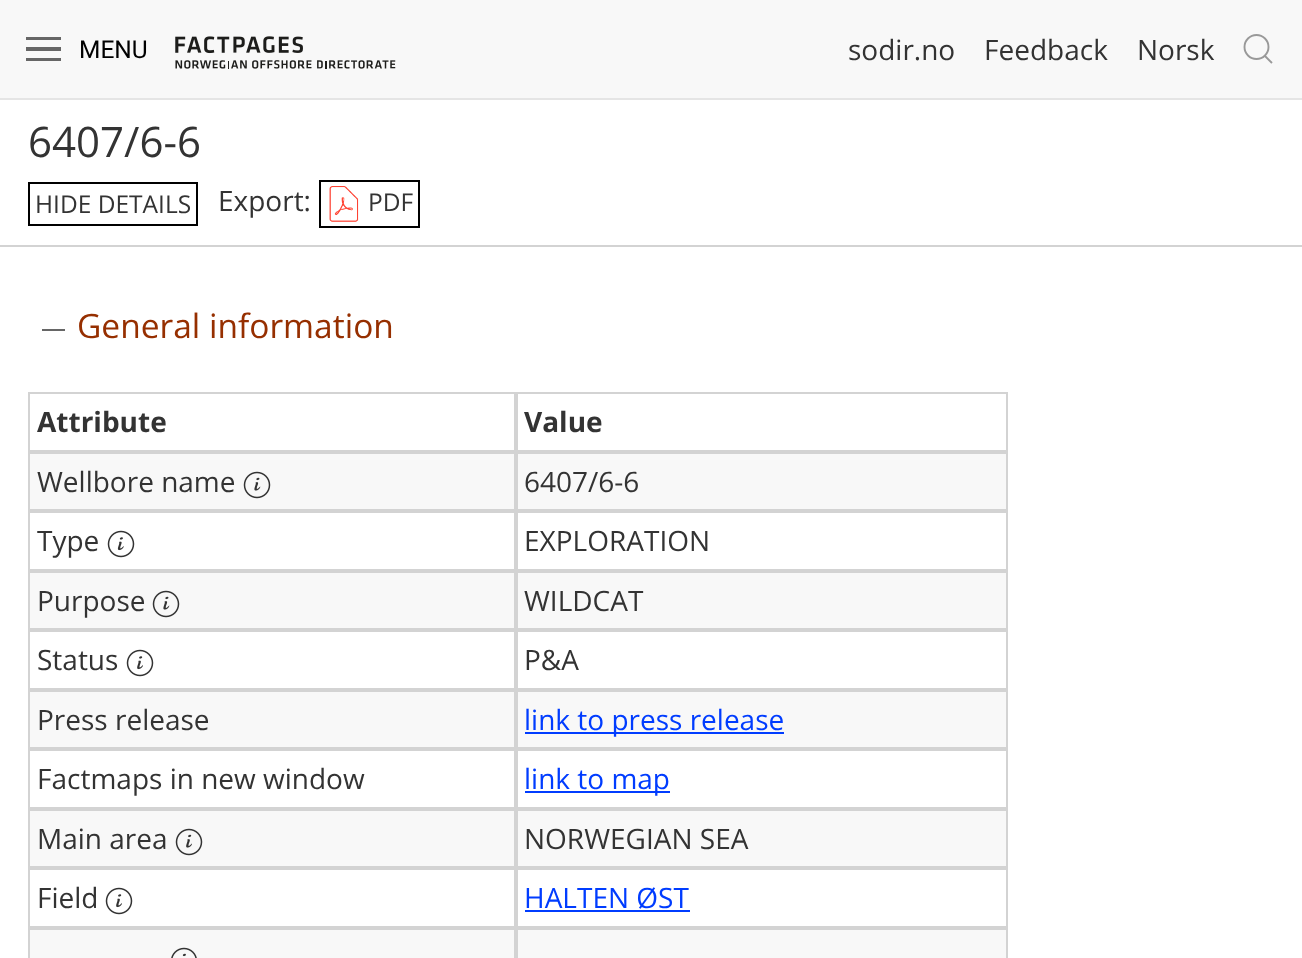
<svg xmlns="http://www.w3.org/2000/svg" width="1302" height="958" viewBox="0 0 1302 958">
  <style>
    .t1 { font: 24.5px Roboto; fill: #000; }
    .t2 { font: 28px Open Sans; fill: #333; }
    .t3 { font: 42px Open Sans; fill: #333; }
    .t4 { font: 24.5px Open Sans; fill: #333; }
    .t5 { font: 33.5px Open Sans; fill: #962f00; }
    .t6 { font: bold 28px Open Sans; fill: #333; }
    .t7 { font: 28px Open Sans; fill: #003cff; }
  </style>
  <rect width="100%" height="100%" fill="#fff"/>
  <rect x="0" y="98" width="1302" height="2" fill="#e5e5e5"/>
  <rect x="0" y="0" width="1302" height="98" fill="#f8f8f8"/>
  <rect x="26" y="37" width="35" height="3" fill="#666"/>
  <rect x="26" y="47" width="35" height="4" fill="#666"/>
  <rect x="26" y="58" width="35" height="3" fill="#666"/>
  <text x="79" y="58" class="t1">MENU</text>
  <image x="175" y="36" width="221" height="33" href="images/1.png"/>
  <text x="848" y="60" class="t2">sodir.no</text>
  <text x="984" y="60" class="t2">Feedback</text>
  <text x="1137" y="60" class="t2">Norsk</text>
  <circle cx="1256.5" cy="47" r="12" fill="none" stroke="#999" stroke-width="1.9"/>
  <path d="M1265 56L1272 63Z" fill="none" stroke="#999" stroke-width="1.9"/>
  <rect x="0" y="245" width="1302" height="2" fill="#d3d3d3"/>
  <text x="28" y="157" class="t3">6407/6-6</text>
  <rect x="29" y="183" width="168" height="42" fill="none" stroke="#000" stroke-width="2"/>
  <text x="35" y="213" class="t4">HIDE DETAILS</text>
  <text x="218" y="211" class="t2">Export:</text>
  <rect x="320" y="181" width="99" height="46" fill="none" stroke="#000" stroke-width="2"/>
  <image x="329" y="186" width="30" height="36" href="images/2.png"/>
  <text x="368" y="211" class="t4">PDF</text>
  <rect x="42" y="329" width="23" height="2" fill="#666"/>
  <text x="77" y="338" class="t5">General information</text>
  <rect x="29" y="393" width="486" height="58" fill="none" stroke="#d3d3d3" stroke-width="2"/>
  <text x="37" y="432" class="t6">Attribute</text>
  <rect x="517" y="393" width="490" height="58" fill="none" stroke="#d3d3d3" stroke-width="2"/>
  <text x="524" y="432" class="t6">Value</text>
  <rect x="30" y="454" width="976" height="55" fill="#f8f8f8"/>
  <rect x="29" y="453" width="486" height="57" fill="none" stroke="#d3d3d3" stroke-width="2"/>
  <text x="37" y="492" class="t2">Wellbore name</text>
  <image x="243" y="471" width="28" height="28" href="images/3.png"/>
  <rect x="517" y="453" width="490" height="57" fill="none" stroke="#d3d3d3" stroke-width="2"/>
  <text x="524" y="492" class="t2">6407/6-6</text>
  <rect x="29" y="512" width="486" height="58" fill="none" stroke="#d3d3d3" stroke-width="2"/>
  <text x="37" y="551" class="t2">Type</text>
  <image x="107" y="530" width="28" height="28" href="images/4.png"/>
  <rect x="517" y="512" width="490" height="58" fill="none" stroke="#d3d3d3" stroke-width="2"/>
  <text x="524" y="551" class="t2">EXPLORATION</text>
  <rect x="30" y="573" width="976" height="55" fill="#f8f8f8"/>
  <rect x="29" y="572" width="486" height="57" fill="none" stroke="#d3d3d3" stroke-width="2"/>
  <text x="37" y="611" class="t2">Purpose</text>
  <image x="152" y="590" width="28" height="28" href="images/3.png"/>
  <rect x="517" y="572" width="490" height="57" fill="none" stroke="#d3d3d3" stroke-width="2"/>
  <text x="524" y="611" class="t2">WILDCAT</text>
  <rect x="29" y="631" width="486" height="58" fill="none" stroke="#d3d3d3" stroke-width="2"/>
  <text x="37" y="670" class="t2">Status</text>
  <image x="126" y="649" width="28" height="28" href="images/5.png"/>
  <rect x="517" y="631" width="490" height="58" fill="none" stroke="#d3d3d3" stroke-width="2"/>
  <text x="524" y="670" class="t2">P&amp;A</text>
  <rect x="30" y="692" width="976" height="55" fill="#f8f8f8"/>
  <rect x="29" y="691" width="486" height="57" fill="none" stroke="#d3d3d3" stroke-width="2"/>
  <text x="37" y="730" class="t2">Press release</text>
  <rect x="517" y="691" width="490" height="57" fill="none" stroke="#d3d3d3" stroke-width="2"/>
  <rect x="525" y="732" width="259" height="2" fill="#003cff"/>
  <text x="524" y="730" class="t7">link to press release</text>
  <rect x="29" y="750" width="486" height="58" fill="none" stroke="#d3d3d3" stroke-width="2"/>
  <text x="37" y="789" class="t2">Factmaps in new window</text>
  <rect x="517" y="750" width="490" height="58" fill="none" stroke="#d3d3d3" stroke-width="2"/>
  <rect x="525" y="791" width="145" height="2" fill="#003cff"/>
  <text x="524" y="789" class="t7">link to map</text>
  <rect x="30" y="811" width="976" height="55" fill="#f8f8f8"/>
  <rect x="29" y="810" width="486" height="57" fill="none" stroke="#d3d3d3" stroke-width="2"/>
  <text x="37" y="849" class="t2">Main area</text>
  <image x="175" y="828" width="28" height="28" href="images/6.png"/>
  <rect x="517" y="810" width="490" height="57" fill="none" stroke="#d3d3d3" stroke-width="2"/>
  <text x="524" y="849" class="t2">NORWEGIAN SEA</text>
  <rect x="29" y="869" width="486" height="58" fill="none" stroke="#d3d3d3" stroke-width="2"/>
  <text x="37" y="908" class="t2">Field</text>
  <image x="105" y="887" width="28" height="28" href="images/5.png"/>
  <rect x="517" y="869" width="490" height="58" fill="none" stroke="#d3d3d3" stroke-width="2"/>
  <text x="524" y="908" class="t7">HALTEN ØST</text>
  <rect x="525" y="910" width="165" height="2" fill="#003cff"/>
  <rect x="30" y="930" width="976" height="28" fill="#f8f8f8"/>
  <rect x="29" y="929" width="486" height="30" fill="none" stroke="#d3d3d3" stroke-width="2"/>
  <image x="171" y="947" width="26" height="11" href="images/7.png"/>
  <rect x="517" y="929" width="490" height="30" fill="none" stroke="#d3d3d3" stroke-width="2"/>
</svg>
